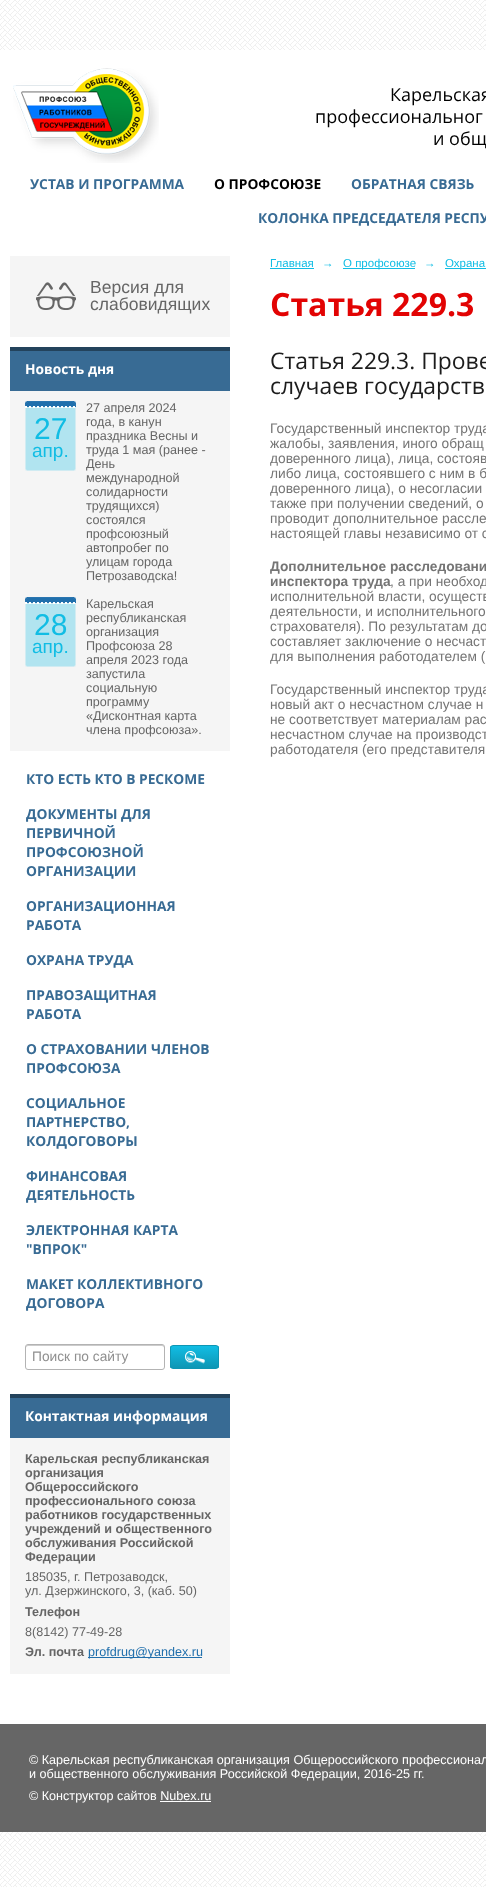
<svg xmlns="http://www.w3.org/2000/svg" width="486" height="1887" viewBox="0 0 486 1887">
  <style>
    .t1 { font: 18px Open Sans; fill: #000; }
    .t2 { font: bold 13.75px Open Sans; fill: #386b94; }
    .t3 { font: bold 13.75px Open Sans; fill: #000; }
    .t4 { font: 17.5px Liberation Sans; fill: #666; }
    .t5 { font: bold 13.75px Open Sans; fill: #fff; }
    .t6 { font: 30px Liberation Sans; fill: #11bde4; }
    .t7 { font: 19px Liberation Sans; fill: #11bde4; }
    .t8 { font: 12.6px Liberation Sans; fill: #666; }
    .t9 { font: 13.75px Liberation Sans; fill: #909090; }
    .t10 { font: bold 12.6px Liberation Sans; fill: #666; }
    .t11 { font: 12.6px Liberation Sans; fill: #206fac; }
    .t12 { font: 11.5px Liberation Sans; fill: #11bde4; }
    .t13 { font: italic 11.5px Liberation Sans; fill: #11bde4; }
    .t14 { font: bold 32px Open Sans; fill: #e20303; }
    .t15 { font: 22.9px Open Sans; fill: #1c1c1c; }
    .t16 { font: 13.75px Liberation Sans; fill: #757575; }
    .t17 { font: bold 13.75px Liberation Sans; fill: #757575; }
    .t18 { font: 12.6px Liberation Sans; fill: #fff; }
  </style>
  <defs>
    <clipPath id="clip1"><rect x="170" y="1345" width="49" height="24" rx="3"/></clipPath>
    <linearGradient id="g1" gradientUnits="userSpaceOnUse" x1="195" y1="1346" x2="195" y2="1368"><stop offset="0" stop-color="#11bde4"/><stop offset="1" stop-color="#0e96b4"/></linearGradient>
  </defs>
  <rect width="100%" height="100%" fill="#fff"/>
  <image x="0" y="0" width="486" height="1887" href="images/1.png"/>
  <rect x="0" y="50" width="486" height="1674" fill="#fff"/>
  <image x="13" y="68" width="146" height="95" href="images/2.png"/>
  <text x="390" y="101" class="t1">Карельская</text>
  <text x="315" y="123" class="t1">профессиональног</text>
  <text x="433" y="145" class="t1">и общ</text>
  <text x="30" y="189" class="t2">УСТАВ И ПРОГРАММА</text>
  <text x="214" y="189" class="t3">О ПРОФСОЮЗЕ</text>
  <text x="351" y="189" class="t2">ОБРАТНАЯ СВЯЗЬ</text>
  <text x="258" y="223" class="t2">КОЛОНКА ПРЕДСЕДАТЕЛЯ РЕСПУ</text>
  <rect x="10" y="256" width="220" height="81" fill="#f5f5f5"/>
  <image x="36" y="282" width="40" height="28" href="images/3.png"/>
  <text x="90" y="293" class="t4">Версия для</text>
  <text x="90" y="310" class="t4">слабовидящих</text>
  <rect x="10" y="351" width="220" height="40" fill="#386b94"/>
  <rect x="10" y="347" width="220" height="4" fill="#23435c"/>
  <text x="25" y="374" class="t5">Новость дня</text>
  <rect x="10" y="391" width="220" height="360" fill="#f5f5f5"/>
  <image x="25" y="401" width="51" height="70" href="images/4.png"/>
  <text x="34" y="439" class="t6">27</text>
  <text x="32" y="457" class="t7">апр.</text>
  <text x="86" y="412" class="t8">27 апреля 2024</text>
  <text x="86" y="426" class="t8">года, в канун</text>
  <text x="86" y="440" class="t8">праздника Весны и</text>
  <text x="86" y="454" class="t8">труда 1 мая (ранее -</text>
  <text x="86" y="468" class="t8">День</text>
  <text x="86" y="482" class="t8">международной</text>
  <text x="86" y="496" class="t8">солидарности</text>
  <text x="86" y="510" class="t8">трудящихся)</text>
  <text x="86" y="524" class="t8">состоялся</text>
  <text x="86" y="538" class="t8">профсоюзный</text>
  <text x="86" y="552" class="t8">автопробег по</text>
  <text x="86" y="566" class="t8">улицам города</text>
  <text x="86" y="580" class="t8">Петрозаводска!</text>
  <image x="25" y="597" width="51" height="70" href="images/4.png"/>
  <text x="34" y="635" class="t6">28</text>
  <text x="32" y="653" class="t7">апр.</text>
  <text x="86" y="608" class="t8">Карельская</text>
  <text x="86" y="622" class="t8">республиканская</text>
  <text x="86" y="636" class="t8">организация</text>
  <text x="86" y="650" class="t8">Профсоюза 28</text>
  <text x="86" y="664" class="t8">апреля 2023 года</text>
  <text x="86" y="678" class="t8">запустила</text>
  <text x="86" y="692" class="t8">социальную</text>
  <text x="86" y="706" class="t8">программу</text>
  <text x="86" y="720" class="t8">«Дисконтная карта</text>
  <text x="86" y="734" class="t8">члена профсоюза».</text>
  <text x="26" y="784" class="t2">КТО ЕСТЬ КТО В РЕСКОМЕ</text>
  <text x="26" y="819" class="t2">ДОКУМЕНТЫ ДЛЯ</text>
  <text x="26" y="838" class="t2">ПЕРВИЧНОЙ</text>
  <text x="26" y="857" class="t2">ПРОФСОЮЗНОЙ</text>
  <text x="26" y="876" class="t2">ОРГАНИЗАЦИИ</text>
  <text x="26" y="911" class="t2">ОРГАНИЗАЦИОННАЯ</text>
  <text x="26" y="930" class="t2">РАБОТА</text>
  <text x="26" y="965" class="t2">ОХРАНА ТРУДА</text>
  <text x="26" y="1000" class="t2">ПРАВОЗАЩИТНАЯ</text>
  <text x="26" y="1019" class="t2">РАБОТА</text>
  <text x="26" y="1054" class="t2">О СТРАХОВАНИИ ЧЛЕНОВ</text>
  <text x="26" y="1073" class="t2">ПРОФСОЮЗА</text>
  <text x="26" y="1108" class="t2">СОЦИАЛЬНОЕ</text>
  <text x="26" y="1127" class="t2">ПАРТНЕРСТВО,</text>
  <text x="26" y="1146" class="t2">КОЛДОГОВОРЫ</text>
  <text x="26" y="1181" class="t2">ФИНАНСОВАЯ</text>
  <text x="26" y="1200" class="t2">ДЕЯТЕЛЬНОСТЬ</text>
  <text x="26" y="1235" class="t2">ЭЛЕКТРОННАЯ КАРТА</text>
  <text x="26" y="1254" class="t2">"ВПРОК"</text>
  <text x="26" y="1289" class="t2">МАКЕТ КОЛЛЕКТИВНОГО</text>
  <text x="26" y="1308" class="t2">ДОГОВОРА</text>
  <path d="M28 1346H162C163 1346 164 1347 164 1348C164 1347 164 1345 162 1345H28C26 1345 26 1347 26 1348C26 1347 27 1346 28 1346Z" fill="#ccc"/>
  <rect x="25.5" y="1344.5" width="139" height="25" rx="2.5" fill="none" stroke="#b3b3b3"/>
  <text x="32" y="1361" class="t9">Поиск по сайту</text>
  <g clip-path="url(#clip1)">
    <rect x="170" y="1346" width="49" height="22" fill="url(#g1)"/>
  </g>
  <rect x="170.5" y="1345.5" width="48" height="23" rx="2.5" fill="none" stroke="#0e96b4"/>
  <image x="185" y="1351" width="20" height="13" href="images/5.png"/>
  <rect x="10" y="1398" width="220" height="40" fill="#386b94"/>
  <rect x="10" y="1394" width="220" height="4" fill="#23435c"/>
  <text x="25" y="1421" class="t5">Контактная информация</text>
  <rect x="10" y="1438" width="220" height="236" fill="#f5f5f5"/>
  <text x="25" y="1463" class="t10">Карельская республиканская</text>
  <text x="25" y="1477" class="t10">организация</text>
  <text x="25" y="1491" class="t10">Общероссийского</text>
  <text x="25" y="1505" class="t10">профессионального союза</text>
  <text x="25" y="1519" class="t10">работников государственных</text>
  <text x="25" y="1533" class="t10">учреждений и общественного</text>
  <text x="25" y="1547" class="t10">обслуживания Российской</text>
  <text x="25" y="1561" class="t10">Федерации</text>
  <text x="25" y="1581" class="t8">185035, г. Петрозаводск,</text>
  <text x="25" y="1595" class="t8">ул. Дзержинского, 3, (каб. 50)</text>
  <text x="25" y="1616" class="t10">Телефон</text>
  <text x="25" y="1636" class="t8">8(8142) 77-49-28</text>
  <text x="25" y="1656" class="t10">Эл. почта</text>
  <rect x="88" y="1657" width="114" height="1" fill="#206fac"/>
  <text x="88" y="1656" class="t11">profdrug@yandex.ru</text>
  <text x="270" y="267" class="t12">Главная</text>
  <rect x="270" y="268" width="44" height="1" fill="#11bde4"/>
  <text x="322" y="267" class="t13">→</text>
  <rect x="343" y="268" width="72" height="1" fill="#11bde4"/>
  <text x="343" y="267" class="t12">О профсоюзе</text>
  <text x="424" y="267" class="t13">→</text>
  <rect x="445" y="268" width="41" height="1" fill="#11bde4"/>
  <text x="445" y="267" class="t12">Охрана</text>
  <text x="270" y="316" class="t14">Статья 229.3</text>
  <text x="270" y="369" class="t15">Статья 229.3. Прове</text>
  <text x="270" y="394" class="t15">случаев государств</text>
  <text x="270" y="433" class="t16">Государственный инспектор труда</text>
  <text x="270" y="448" class="t16">жалобы, заявления, иного обращ</text>
  <text x="270" y="463" class="t16">доверенного лица), лица, состояв</text>
  <text x="270" y="478" class="t16">либо лица, состоявшего с ним в б</text>
  <text x="270" y="493" class="t16">доверенного лица), о несогласии</text>
  <text x="270" y="508" class="t16">также при получении сведений, о</text>
  <text x="270" y="523" class="t16">проводит дополнительное рассле</text>
  <text x="270" y="538" class="t16">настоящей главы независимо от с</text>
  <text x="270" y="571" class="t17">Дополнительное расследовани</text>
  <text x="270" y="586" class="t17">инспектора труда</text>
  <text x="390" y="586" class="t16">, а при необход</text>
  <text x="270" y="601" class="t16">исполнительной власти, осуществ</text>
  <text x="270" y="616" class="t16">деятельности, и исполнительного</text>
  <text x="270" y="631" class="t16">страхователя). По результатам до</text>
  <text x="270" y="646" class="t16">составляет заключение о несчаст</text>
  <text x="270" y="661" class="t16">для выполнения работодателем (</text>
  <text x="270" y="694" class="t16">Государственный инспектор труда</text>
  <text x="270" y="709" class="t16">новый акт о несчастном случае н</text>
  <text x="270" y="724" class="t16">не соответствует материалам рас</text>
  <text x="270" y="739" class="t16">несчастном случае на производст</text>
  <text x="270" y="754" class="t16">работодателя (его представителя</text>
  <rect x="0" y="1724" width="486" height="108" fill="#666"/>
  <text x="29" y="1764" class="t18">© Карельская республиканская организация Общероссийского профессионал</text>
  <text x="29" y="1778" class="t18">и общественного обслуживания Российской Федерации, 2016-25 гг.</text>
  <text x="29" y="1800" class="t18">© Конструктор сайтов Nubex.ru</text>
  <rect x="160" y="1801" width="51" height="1" fill="#fff"/>
</svg>
